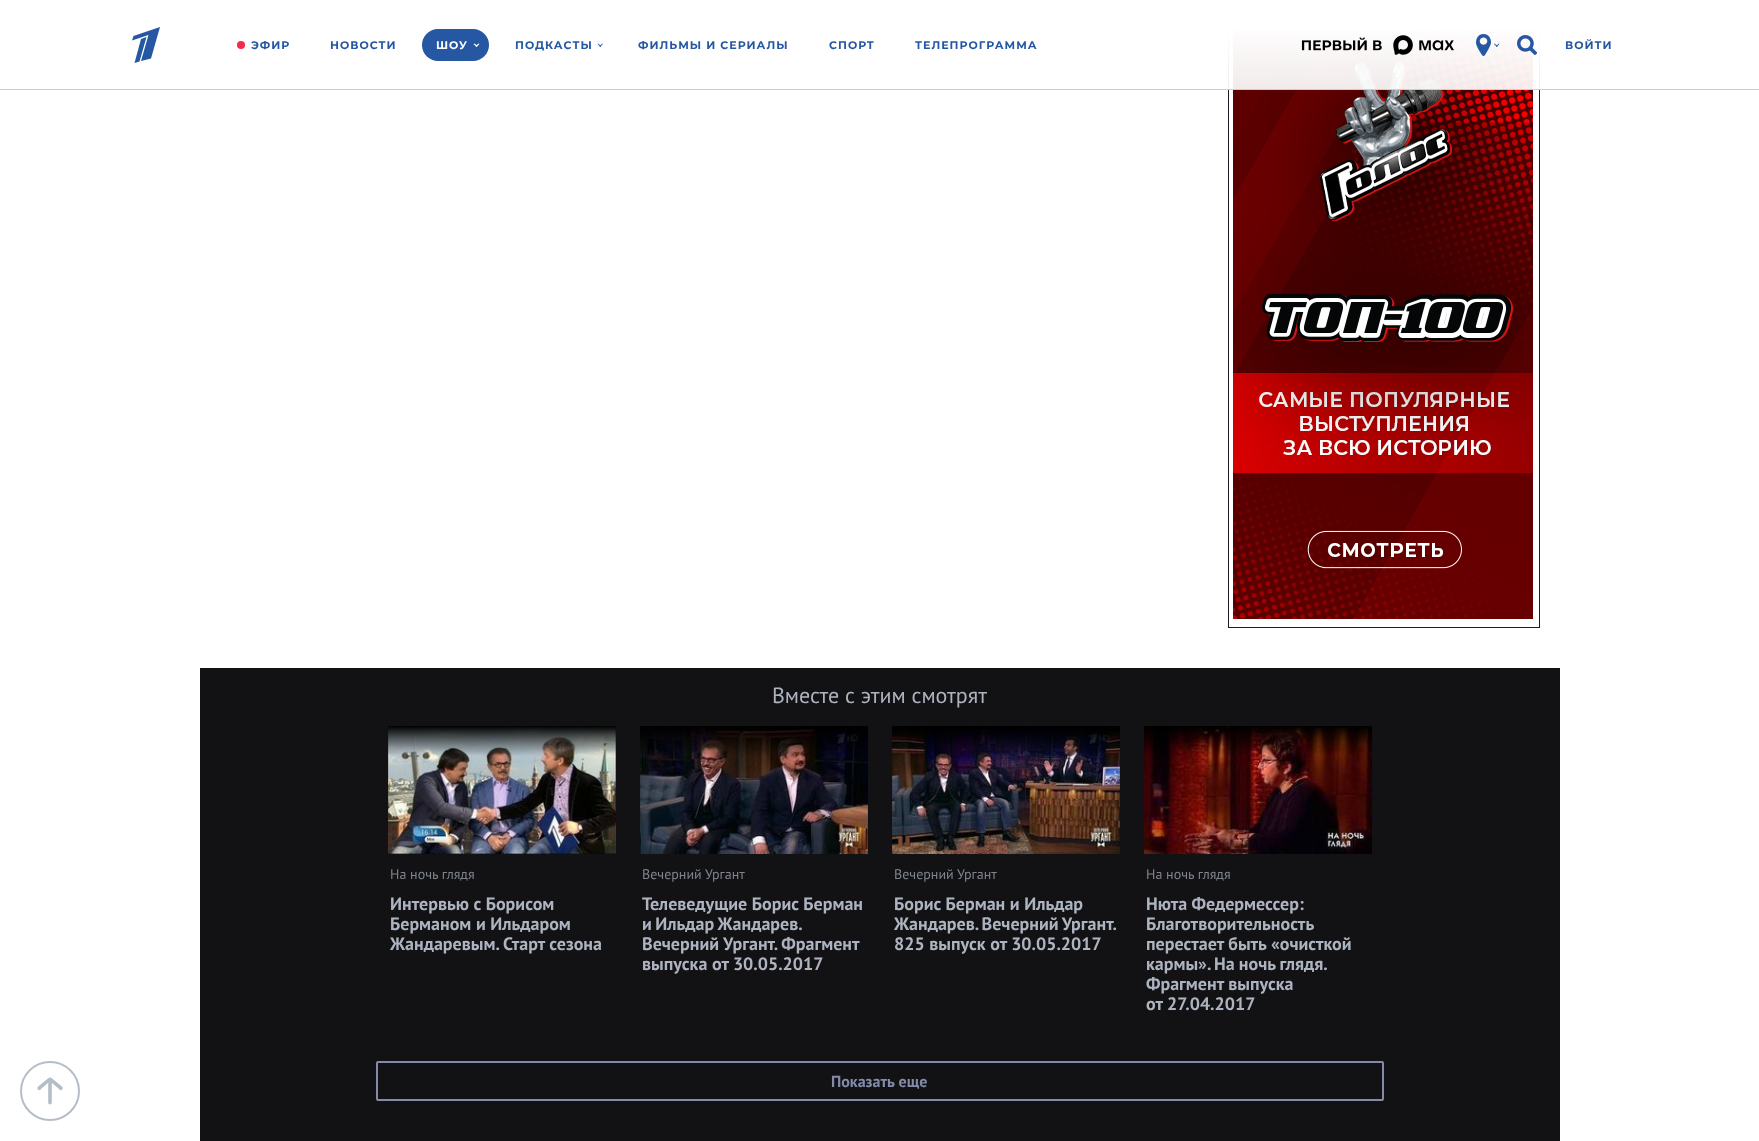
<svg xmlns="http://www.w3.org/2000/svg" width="1759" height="1141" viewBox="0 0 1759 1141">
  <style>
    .t1 { font: bold 11px Montserrat; letter-spacing: 1px; fill: #2657a2; }
    .t2 { font: bold 11px Montserrat; letter-spacing: 1px; fill: #fff; }
    .t3 { font: 22px PT Sans; fill: #adb4bf; }
    .t4 { font: 14px PT Sans; fill: #7f838c; }
    .t5 { font: bold 18px PT Sans; fill: #adb4bf; }
    .t6 { font: bold 16px PT Sans; fill: #838ba9; }
  </style>
  <defs>
    <linearGradient id="g1" gradientUnits="userSpaceOnUse" x1="880" y1="0" x2="880" y2="89"><stop offset="0.28" stop-color="#fff"/><stop offset="1" stop-color="#fff" stop-opacity="0.92"/></linearGradient>
  </defs>
  <rect width="100%" height="100%" fill="#fff"/>
  <image x="37" y="1077" width="26" height="28" href="images/1.png"/>
  <circle cx="50" cy="1091" r="29" fill="none" stroke="#b5bec8" stroke-width="2"/>
  <rect x="1228.5" y="14.5" width="311" height="613" fill="none" stroke="#1c1e25"/>
  <image x="1233" y="30" width="300" height="589" href="images/5.png"/>
  <rect x="1228" y="14" width="312" height="75" fill="url(#g1)"/>
  <rect x="0" y="89" width="1759" height="1" fill="#cdcdcd"/>
  <circle cx="241" cy="45" r="4" fill="#f32b4f"/>
  <text x="251" y="49" class="t1">ЭФИР</text>
  <text x="330" y="49" class="t1">НОВОСТИ</text>
  <rect x="422" y="29" width="67" height="32" rx="16" fill="#2657a2"/>
  <text x="436" y="49" class="t2">ШОУ</text>
  <path d="M474.5 43.5L477.5 46L476.5 47L473.5 44Z" fill="#fff"/>
  <path d="M475.5 46L478.5 43.5L479.5 44L476.5 47Z" fill="#fff"/>
  <text x="515" y="49" class="t1">ПОДКАСТЫ</text>
  <path d="M598 43.5L601 46L600.5 47L597.5 44Z" fill="#2657a2"/>
  <path d="M599.5 46L602.5 43.5L603 44L600 47Z" fill="#2657a2"/>
  <text x="638" y="49" class="t1">ФИЛЬМЫ И СЕРИАЛЫ</text>
  <text x="829" y="49" class="t1">СПОРТ</text>
  <text x="915" y="49" class="t1">ТЕЛЕПРОГРАММА</text>
  <path d="M132 40.5L133.5 36L160 27L151 58.5L141 61L148.5 35ZM134.5 63L141 39L146.5 37L139.5 61.5Z" fill="#2657a2" fill-rule="evenodd"/>
  <image x="1301" y="35" width="153" height="20" href="images/2.png"/>
  <image x="1476" y="34" width="15" height="22" href="images/3.png"/>
  <path d="M1494.5 43.5L1497.5 46L1497 47L1494 44Z" fill="#2657a2"/>
  <path d="M1496 46L1499 43.5L1499.5 44L1496.5 47Z" fill="#2657a2"/>
  <image x="1517" y="35" width="21" height="20" href="images/4.png"/>
  <text x="1565" y="49" class="t1">ВОЙТИ</text>
  <rect x="200" y="668" width="1360" height="473" fill="#121215"/>
  <text x="772" y="703" class="t3">Вместе с этим смотрят</text>
  <image x="388" y="726" width="228" height="128" href="images/6.png"/>
  <text x="390" y="879" class="t4">На ночь глядя</text>
  <text x="390" y="910" class="t5">Интервью с Борисом</text>
  <text x="390" y="930" class="t5">Берманом и Ильдаром</text>
  <text x="390" y="950" class="t5">Жандаревым. Старт сезона</text>
  <image x="640" y="726" width="228" height="128" href="images/7.png"/>
  <text x="642" y="879" class="t4">Вечерний Ургант</text>
  <text x="642" y="910" class="t5">Телеведущие Борис Берман</text>
  <text x="642" y="930" word-spacing="-1" class="t5">и Ильдар Жандарев.</text>
  <text x="642" y="950" class="t5">Вечерний Ургант. Фрагмент</text>
  <text x="642" y="970" class="t5">выпуска от 30.05.2017</text>
  <image x="892" y="726" width="228" height="128" href="images/8.png"/>
  <text x="894" y="879" class="t4">Вечерний Ургант</text>
  <text x="894" y="910" class="t5">Борис Берман и Ильдар</text>
  <text x="894" y="930" word-spacing="-1" class="t5">Жандарев. Вечерний Ургант.</text>
  <text x="894" y="950" class="t5">825 выпуск от 30.05.2017</text>
  <image x="1144" y="726" width="228" height="128" href="images/9.png"/>
  <text x="1146" y="879" class="t4">На ночь глядя</text>
  <text x="1146" y="910" class="t5">Нюта Федермессер:</text>
  <text x="1146" y="930" class="t5">Благотворительность</text>
  <text x="1146" y="950" class="t5">перестает быть «очисткой</text>
  <text x="1146" y="970" word-spacing="-0.5" class="t5">кармы». На ночь глядя.</text>
  <text x="1146" y="990" class="t5">Фрагмент выпуска</text>
  <text x="1146" y="1010" class="t5">от 27.04.2017</text>
  <rect x="377" y="1062" width="1006" height="38" rx="1" fill="none" stroke="#838ba9" stroke-width="2"/>
  <text x="831" y="1087" class="t6">Показать еще</text>
</svg>
